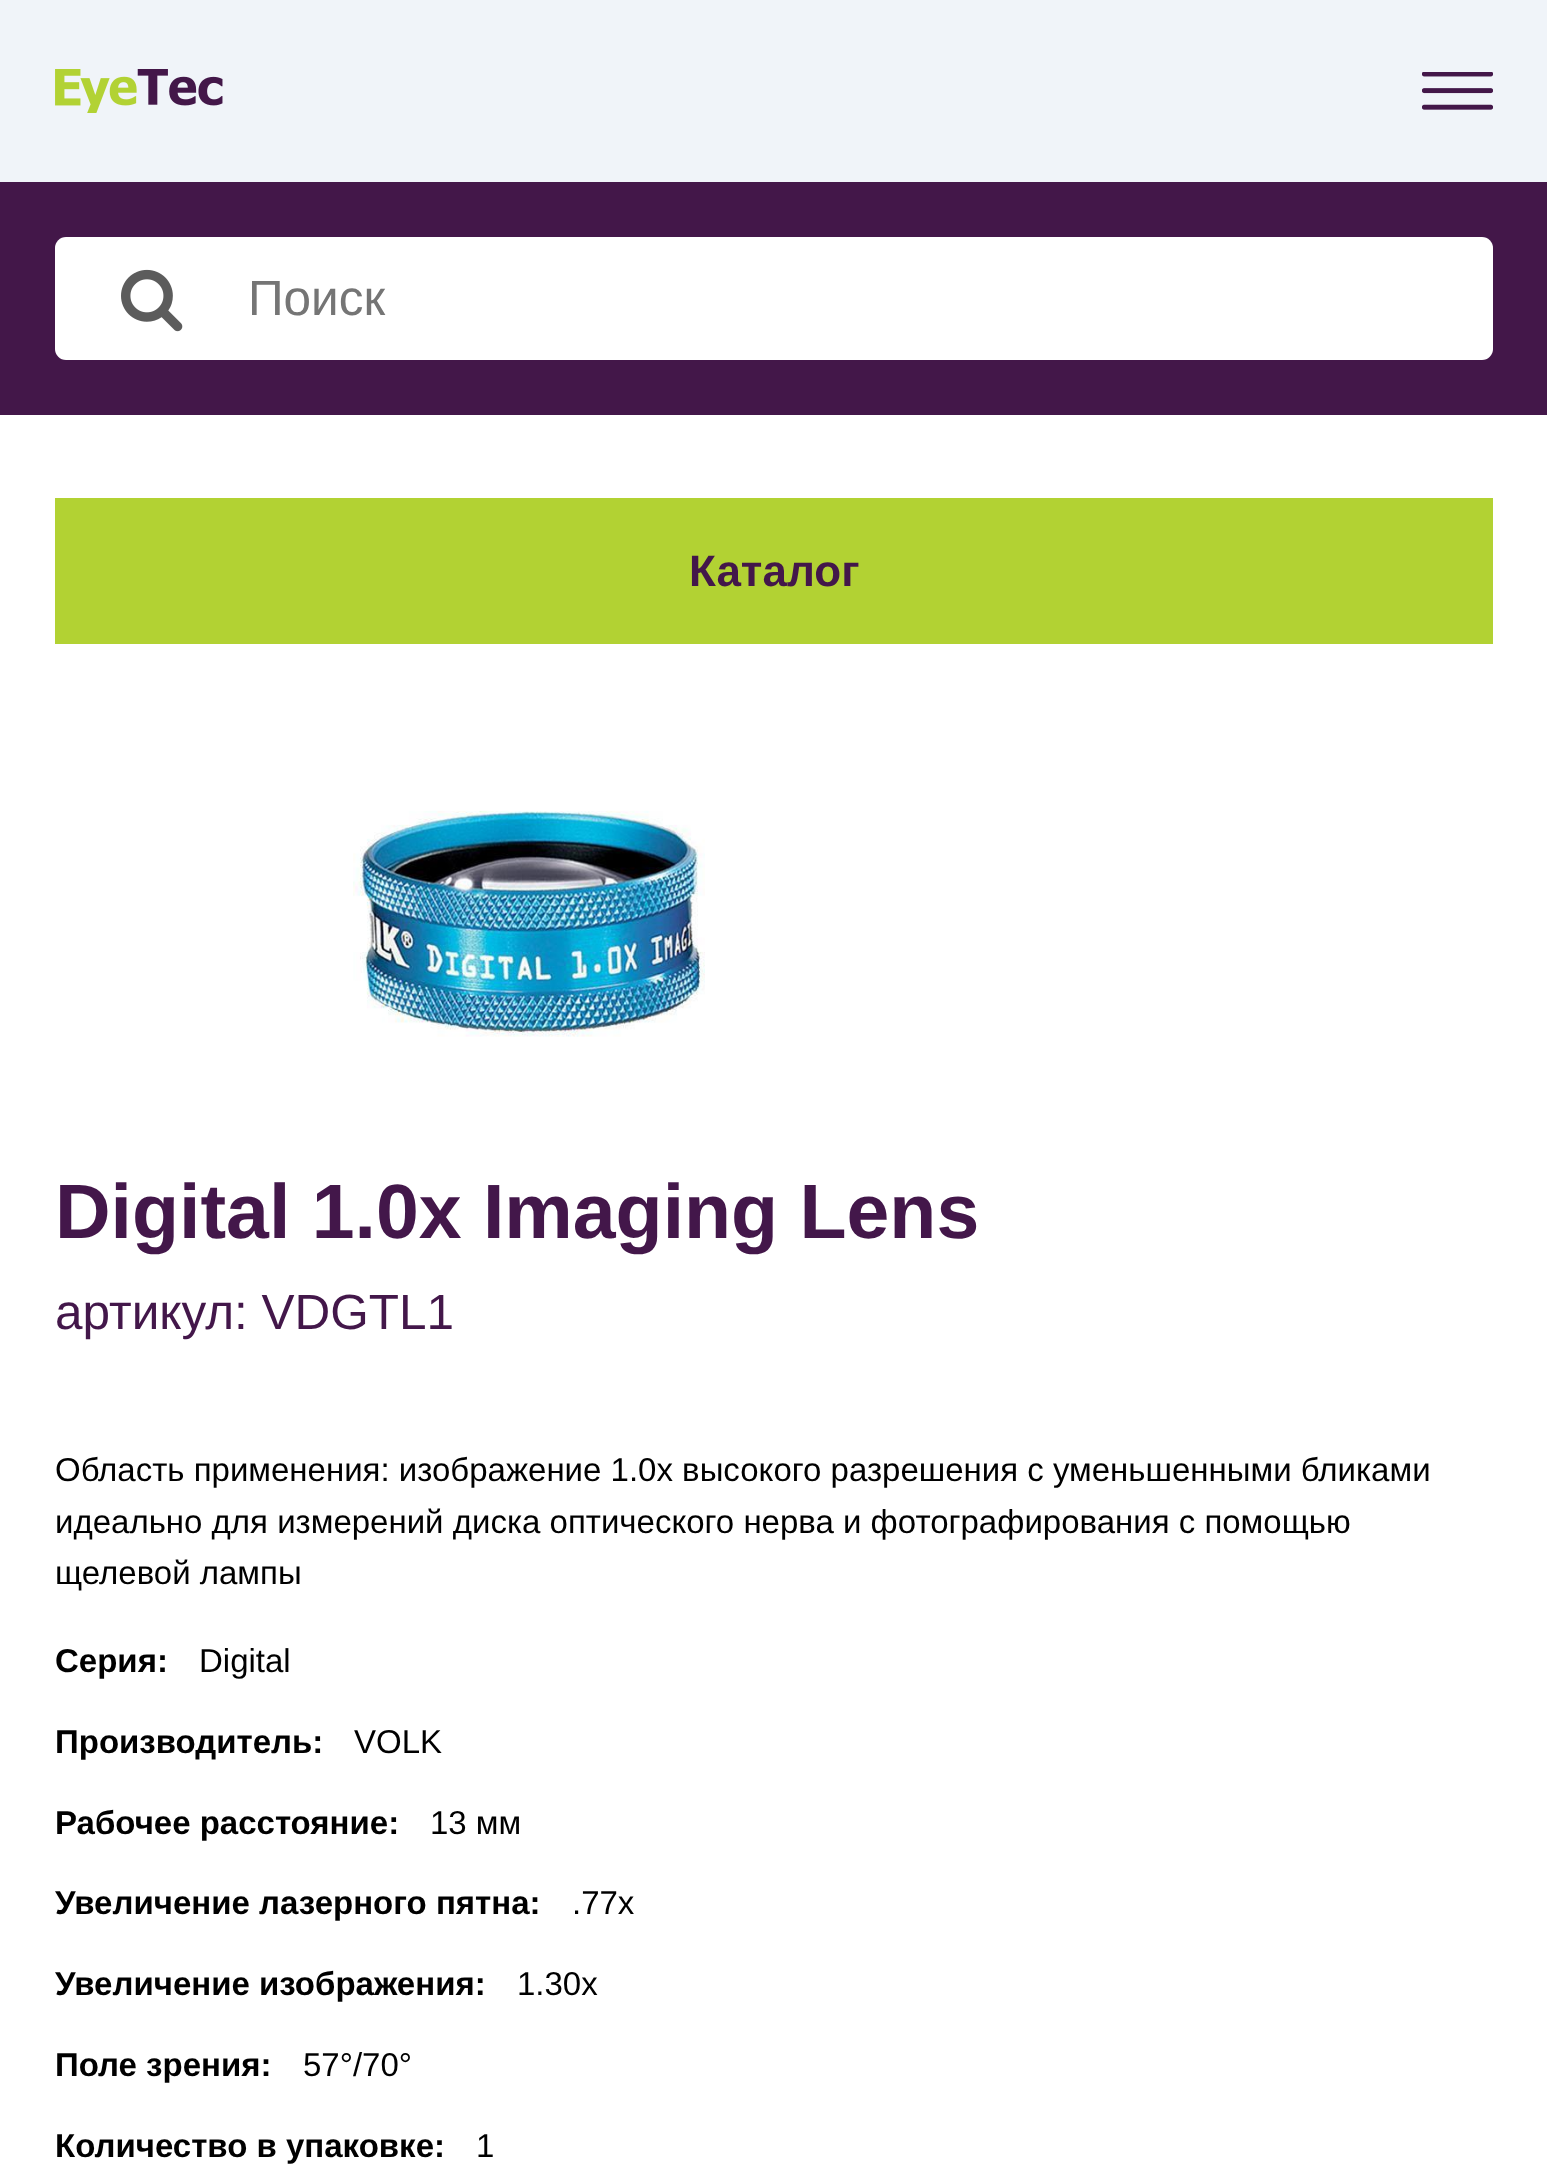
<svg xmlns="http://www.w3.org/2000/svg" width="1547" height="2176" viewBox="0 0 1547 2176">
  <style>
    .t1 { font: 49.5px Liberation Sans; fill: #757575; }
    .t2 { font: bold 44px Liberation Sans; fill: #43174a; }
    .t3 { font: bold 77px Liberation Sans; fill: #43174a; }
    .t4 { font: 49.5px Liberation Sans; fill: #43174a; }
    .t5 { font: 33px Liberation Sans; fill: #000; }
    .t6 { font: bold 33px Liberation Sans; fill: #000; }
  </style>
  <rect width="100%" height="100%" fill="#fff"/>
  <rect x="0" y="0" width="1547" height="182" fill="#f0f4f9"/>
  <image x="55" y="69" width="168" height="44" href="images/1.png"/>
  <image x="1422" y="72" width="71" height="38" href="images/2.png"/>
  <rect x="0" y="182" width="1547" height="233" fill="#431749"/>
  <rect x="55" y="237" width="1438" height="123" rx="11" fill="#fff"/>
  <image x="121" y="269" width="62" height="63" href="images/3.png"/>
  <text x="248" y="315" class="t1">Поиск</text>
  <rect x="55" y="498" width="1438" height="146" fill="#b2d233"/>
  <text x="689" y="586" class="t2">Каталог</text>
  <image x="353" y="810" width="352" height="227" href="images/4.png"/>
  <text x="55" y="1238" class="t3">Digital 1.0x Imaging Lens</text>
  <text x="55" y="1329" class="t4">артикул: VDGTL1</text>
  <text x="55" y="1481" class="t5">Область применения: изображение 1.0x высокого разрешения с уменьшенными бликами</text>
  <text x="55" y="1533" class="t5">идеально для измерений диска оптического нерва и фотографирования с помощью</text>
  <text x="55" y="1584" class="t5">щелевой лампы</text>
  <text x="55" y="1672" class="t6">Серия:</text>
  <text x="199" y="1672" class="t5">Digital</text>
  <text x="55" y="1753" class="t6">Производитель:</text>
  <text x="354" y="1753" class="t5">VOLK</text>
  <text x="55" y="1834" class="t6">Рабочее расстояние:</text>
  <text x="430" y="1834" class="t5">13 мм</text>
  <text x="55" y="1914" class="t6">Увеличение лазерного пятна:</text>
  <text x="572" y="1914" class="t5">.77х</text>
  <text x="55" y="1995" class="t6">Увеличение изображения:</text>
  <text x="517" y="1995" class="t5">1.30х</text>
  <text x="55" y="2076" class="t6">Поле зрения:</text>
  <text x="303" y="2076" class="t5">57°/70°</text>
  <text x="55" y="2157" class="t6">Количество в упаковке:</text>
  <text x="476" y="2157" class="t5">1</text>
</svg>
